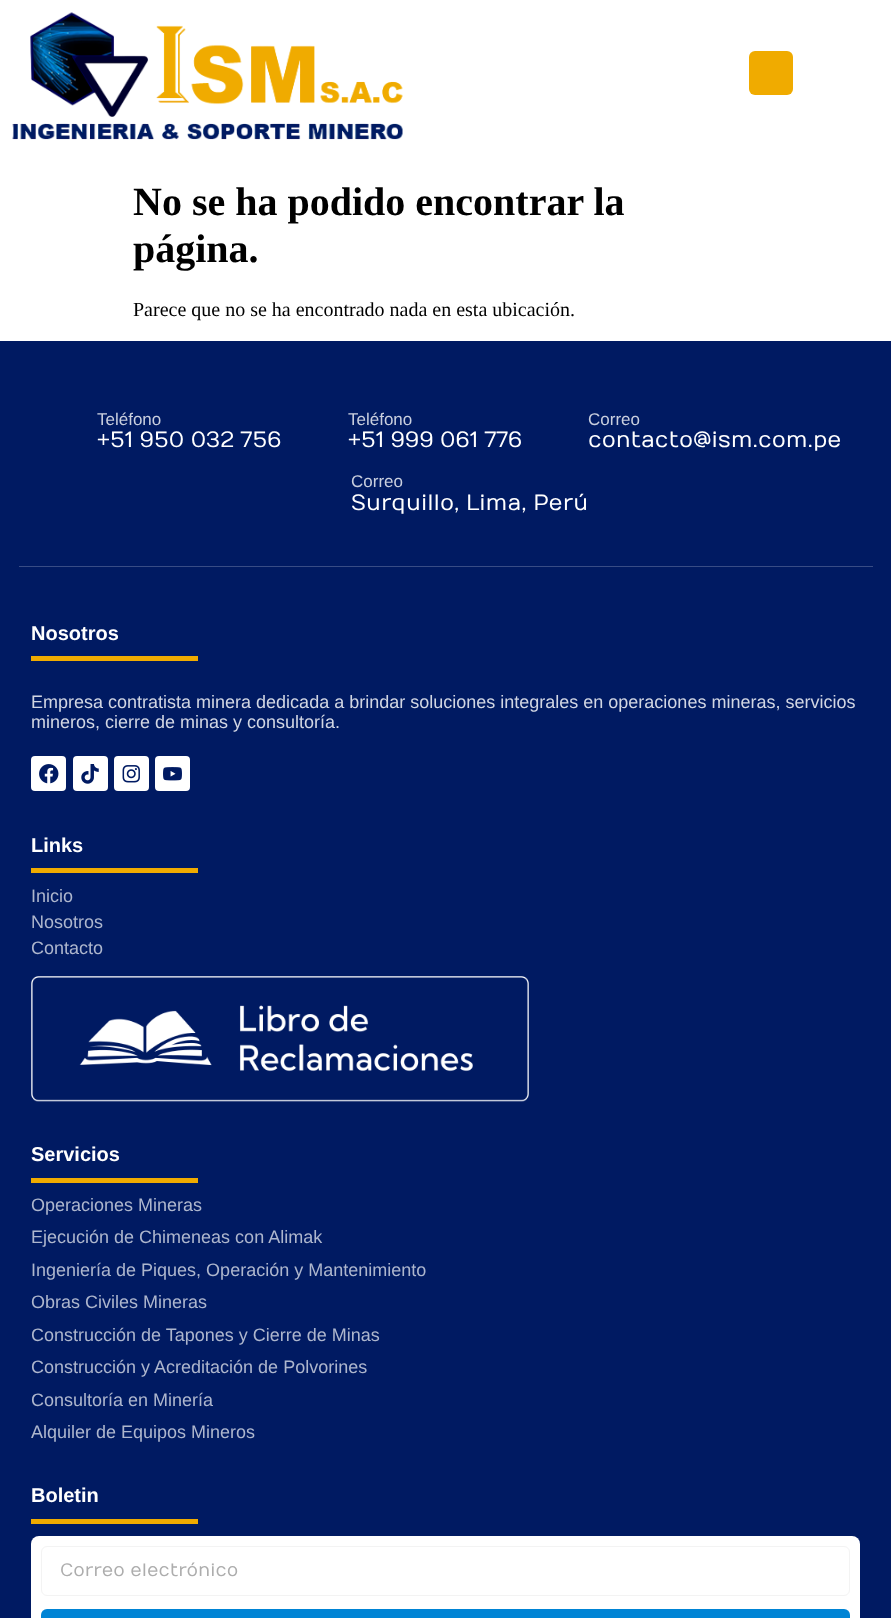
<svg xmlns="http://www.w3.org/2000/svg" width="891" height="1618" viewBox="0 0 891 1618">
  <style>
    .t1 { font: bold 40px Liberation Serif; fill: #000; }
    .t2 { font: 20px Liberation Serif; fill: #000; }
    .t3 { font: 17px Liberation Sans; fill: #c9cfde; }
    .t4 { font: 22px Numans; fill: #fff; }
    .t5 { font: bold 20px Liberation Sans; fill: #fff; }
    .t6 { font: 18px Liberation Sans; fill: #d1d6e3; }
    .t7 { font: 18px Liberation Sans; fill: #adb6cd; }
    .t8 { font: 18px Numans; fill: #adadad; }
  </style>
  <rect width="100%" height="100%" fill="#fff"/>
  <image x="12" y="12" width="391" height="128" href="images/1.png"/>
  <rect x="749" y="51" width="44" height="44" rx="6" fill="#f0ab00"/>
  <text x="133" y="215" class="t1">No se ha podido encontrar la</text>
  <text x="133" y="262" class="t1">página.</text>
  <text x="133" y="316" class="t2">Parece que no se ha encontrado nada en esta ubicación.</text>
  <rect x="0" y="341" width="891" height="1277" fill="#001a62"/>
  <text x="97" y="425" class="t3">Teléfono</text>
  <text x="97" y="447" class="t4">+51 950 032 756</text>
  <text x="348" y="425" class="t3">Teléfono</text>
  <text x="348" y="447" class="t4">+51 999 061 776</text>
  <text x="588" y="425" class="t3">Correo</text>
  <text x="588" y="447" class="t4">contacto@ism.com.pe</text>
  <text x="351" y="487" class="t3">Correo</text>
  <text x="351" y="510" class="t4">Surquillo, Lima, Perú</text>
  <rect x="19" y="566" width="854" height="1" fill="#384c85"/>
  <text x="31" y="640" class="t5">Nosotros</text>
  <rect x="31" y="656" width="167" height="5" fill="#f0ab00"/>
  <text x="31" y="708" class="t6">Empresa contratista minera dedicada a brindar soluciones integrales en operaciones mineras, servicios</text>
  <text x="31" y="728" class="t6">mineros, cierre de minas y consultoría.</text>
  <rect x="31" y="756" width="35" height="35" rx="4" fill="#fff"/>
  <image x="39" y="764" width="20" height="20" href="images/2.png"/>
  <rect x="73" y="756" width="35" height="35" rx="4" fill="#fff"/>
  <image x="81" y="764" width="18" height="20" href="images/3.png"/>
  <rect x="114" y="756" width="35" height="35" rx="4" fill="#fff"/>
  <image x="122" y="765" width="18" height="18" href="images/4.png"/>
  <rect x="155" y="756" width="35" height="35" rx="4" fill="#fff"/>
  <image x="163" y="767" width="19" height="14" href="images/5.png"/>
  <text x="31" y="852" class="t5">Links</text>
  <rect x="31" y="868" width="167" height="5" fill="#f0ab00"/>
  <text x="31" y="902" class="t7">Inicio</text>
  <text x="31" y="928" class="t7">Nosotros</text>
  <text x="31" y="954" class="t7">Contacto</text>
  <image x="31" y="976" width="498" height="126" href="images/6.png"/>
  <text x="31" y="1161" class="t5">Servicios</text>
  <rect x="31" y="1178" width="167" height="5" fill="#f0ab00"/>
  <text x="31" y="1211" class="t7">Operaciones Mineras</text>
  <text x="31" y="1243" class="t7">Ejecución de Chimeneas con Alimak</text>
  <text x="31" y="1276" class="t7">Ingeniería de Piques, Operación y Mantenimiento</text>
  <text x="31" y="1308" class="t7">Obras Civiles Mineras</text>
  <text x="31" y="1341" class="t7">Construcción de Tapones y Cierre de Minas</text>
  <text x="31" y="1373" class="t7">Construcción y Acreditación de Polvorines</text>
  <text x="31" y="1406" class="t7">Consultoría en Minería</text>
  <text x="31" y="1438" class="t7">Alquiler de Equipos Mineros</text>
  <text x="31" y="1502" class="t5">Boletin</text>
  <rect x="31" y="1519" width="167" height="5" fill="#f0ab00"/>
  <rect x="31" y="1536" width="829" height="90" rx="8" fill="#fff"/>
  <rect x="41.5" y="1546.5" width="808" height="49" rx="5.5" fill="none" stroke="#f3f3f3"/>
  <text x="60" y="1576" class="t8">Correo electrónico</text>
  <rect x="41" y="1609" width="809" height="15" rx="6" fill="#0084d5"/>
</svg>
